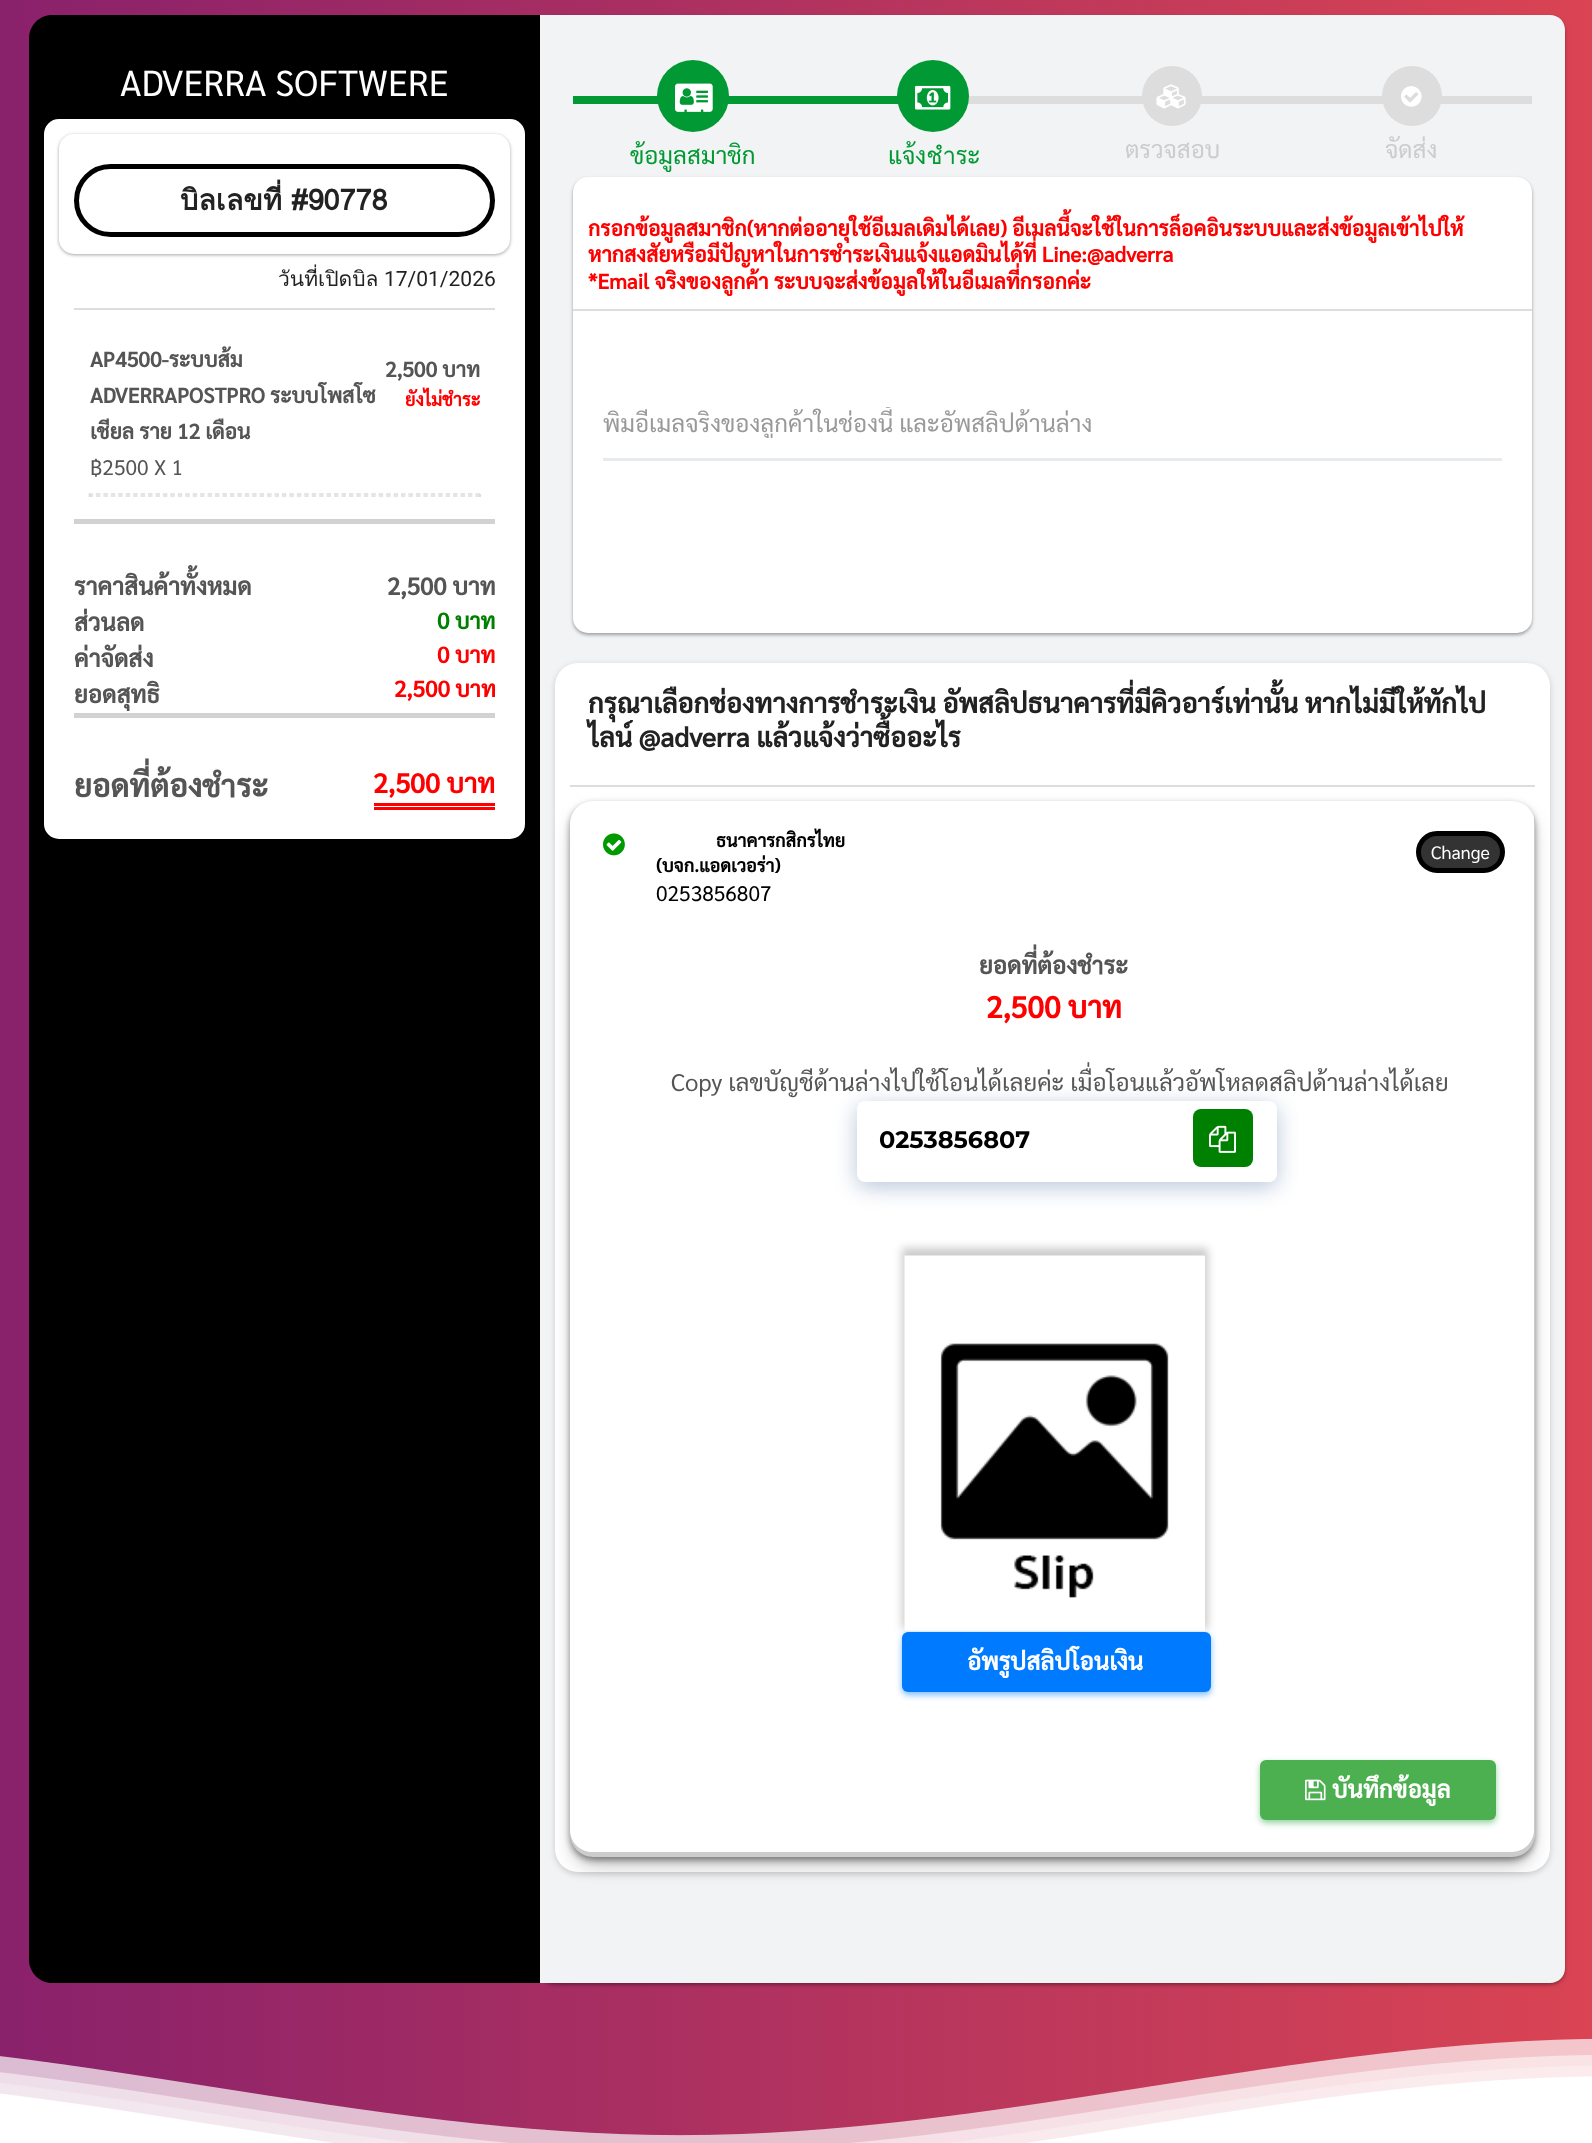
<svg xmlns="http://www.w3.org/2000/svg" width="1592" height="2143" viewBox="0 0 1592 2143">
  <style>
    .t1 { font: 36px Sarabun; fill: #fff; }
    .t2 { font: bold 28.75px Loma; fill: #222; }
    .t3 { font: 21px Loma; fill: #222; }
    .t4 { font: 21px Roboto; fill: #222; }
    .t5 { font: bold 21px Sarabun; fill: #555; }
    .t6 { font: 21px Sarabun; fill: #555; }
    .t7 { font: bold 18px Sarabun; fill: #f00; }
    .t8 { font: bold 24px Sarabun; fill: #555; }
    .t9 { font: bold 22.5px Sarabun; fill: #008000; }
    .t10 { font: bold 22.5px Sarabun; fill: #f00; }
    .t11 { font: bold 31.25px Sarabun; fill: #555; }
    .t12 { font: bold 27px Sarabun; fill: #f00; }
    .t13 { font: 24px Sarabun; fill: #093; }
    .t14 { font: 24px Sarabun; fill: #ccc; }
    .t15 { font: bold 21px Sarabun; fill: #f00; }
    .t16 { font: 24px Sarabun; fill: #999; }
    .t17 { font: bold 27px Sarabun; fill: #222; }
    .t18 { font: bold 18px Sarabun; fill: #000; }
    .t19 { font: 18px Sarabun; fill: #fff; }
    .t20 { font: 21px Sarabun; fill: #000; }
    .t21 { font: bold 30px Sarabun; fill: #f00; }
    .t22 { font: 24px Sarabun; fill: #555; }
    .t23 { font: bold 24px Montserrat; fill: #000; }
    .t24 { font: bold 24px Sarabun; fill: #fff; }
  </style>
  <defs>
    <linearGradient id="g1" gradientUnits="userSpaceOnUse" x1="0" y1="977" x2="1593" y2="977"><stop offset="0" stop-color="#89216b"/><stop offset="1" stop-color="#da4453"/></linearGradient>
    <clipPath id="clip1"><rect x="603" y="407" width="881" height="31"/></clipPath>
  </defs>
  <rect width="100%" height="100%" fill="#fff"/>
  <rect x="0" y="0" width="1592" height="2143" fill="url(#g1)"/>
  <path d="M52 15H540V1983H52C39.5 1983 29 1972.5 29 1960V38C29 25.5 39.5 15 52 15Z" fill="#000"/>
  <text x="120" y="96" class="t1">ADVERRA SOFTWERE</text>
  <rect x="44" y="119" width="481" height="720" rx="15" fill="#fff"/>
  <rect x="59" y="135" width="451" height="120" rx="15" fill="#0000003d" filter="blur(1.5px)"/>
  <rect x="59" y="135" width="451" height="120" rx="15" fill="#0000001f" filter="blur(2px)"/>
  <rect x="59" y="134" width="451" height="120" rx="15" fill="#fff"/>
  <rect x="76.5" y="166.5" width="416" height="68" rx="34" fill="none" stroke="#000" stroke-width="5"/>
  <text x="180" y="210" class="t2">บิลเลขที่ #90778</text>
  <text x="278" y="286" class="t3">วันที่เปิดบิล</text>
  <text x="384" y="286" class="t4">17/01/2026</text>
  <rect x="74" y="308" width="421" height="2" fill="#ddd"/>
  <text x="90" y="367" class="t5">AP4500-ระบบส้ม</text>
  <text x="90" y="403" class="t5">ADVERRAPOSTPRO ระบบโพสโซ</text>
  <text x="90" y="439" class="t5">เชียล ราย 12 เดือน</text>
  <text x="90" y="475" class="t6">฿2500 X 1</text>
  <text x="385" y="377" class="t5">2,500 บาท</text>
  <text x="405" y="406" class="t7">ยังไม่ชำระ</text>
  <path d="M88.5 494H480" fill="none" stroke="#ddd" stroke-width="1.5" stroke-dasharray="4.5 2.94"/>
  <rect x="479" y="494" width="2" height="3" fill="#ddd"/>
  <path d="M88.5 496H480" fill="none" stroke="#ddd" stroke-width="1.5" stroke-dasharray="4.5 2.94"/>
  <rect x="89" y="494" width="2" height="3" fill="#ddd"/>
  <rect x="74" y="519" width="421" height="5" fill="#d2d2d2"/>
  <text x="74" y="595" class="t8">ราคาสินค้าทั้งหมด</text>
  <text x="74" y="631" class="t8">ส่วนลด</text>
  <text x="74" y="667" class="t8">ค่าจัดส่ง</text>
  <text x="74" y="703" class="t8">ยอดสุทธิ</text>
  <text x="387" y="595" class="t8">2,500 บาท</text>
  <text x="437" y="629" class="t9">0 บาท</text>
  <text x="437" y="663" class="t10">0 บาท</text>
  <text x="394" y="697" class="t10">2,500 บาท</text>
  <rect x="74" y="713" width="421" height="5" fill="#d2d2d2"/>
  <text x="74" y="797" class="t11">ยอดที่ต้องชำระ</text>
  <rect x="374" y="803" width="121" height="3" fill="#f00"/>
  <rect x="374" y="807" width="121" height="3" fill="#f00"/>
  <text x="373" y="793" class="t12">2,500 บาท</text>
  <rect x="540" y="17" width="1025" height="1968" rx="15" fill="#0000003d" filter="blur(1.5px)"/>
  <rect x="540" y="17" width="1025" height="1968" rx="15" fill="#0000001f" filter="blur(2px)"/>
  <path d="M540 15H1550C1558.5 15 1565 21.5 1565 30V1968C1565 1976.5 1558.5 1983 1550 1983H540Z" fill="#f2f3f5"/>
  <rect x="968" y="96" width="564" height="8" fill="#ddd"/>
  <rect x="573" y="96" width="325" height="8" fill="#093"/>
  <circle cx="693" cy="96" r="36" fill="#093"/>
  <image x="675" y="83" width="38" height="29" href="images/1.png"/>
  <text x="630" y="164" class="t13">ข้อมูลสมาชิก</text>
  <circle cx="933" cy="96" r="36" fill="#093"/>
  <image x="915" y="85" width="36" height="25" href="images/2.png"/>
  <text x="888" y="164" class="t13">แจ้งชำระ</text>
  <circle cx="1172" cy="96" r="30" fill="#ddd"/>
  <image x="1156" y="84" width="30" height="25" href="images/3.png"/>
  <text x="1125" y="158" class="t14">ตรวจสอบ</text>
  <circle cx="1412" cy="96" r="30" fill="#ddd"/>
  <image x="1401" y="86" width="21" height="21" href="images/4.png"/>
  <text x="1385" y="158" class="t14">จัดส่ง</text>
  <rect x="573" y="179" width="959" height="456" rx="15" fill="#0000003d" filter="blur(1.5px)"/>
  <rect x="573" y="179" width="959" height="456" rx="15" fill="#0000001f" filter="blur(2px)"/>
  <rect x="573" y="177" width="959" height="456" rx="15" fill="#fff"/>
  <text x="588" y="236" class="t15">กรอกข้อมูลสมาชิก(หากต่ออายุใช้อีเมลเดิมได้เลย) อีเมลนี้จะใช้ในการล็อคอินระบบและส่งข้อมูลเข้าไปให้</text>
  <text x="588" y="262" class="t15">หากสงสัยหรือมีปัญหาในการชำระเงินแจ้งแอดมินได้ที่ Line:@adverra</text>
  <text x="588" y="289" class="t15">*Email จริงของลูกค้า ระบบจะส่งข้อมูลให้ในอีเมลที่กรอกค่ะ</text>
  <rect x="573" y="309" width="959" height="2" fill="#ddd"/>
  <rect x="603" y="458" width="899" height="3" fill="#e8ebed"/>
  <g clip-path="url(#clip1)">
    <text x="603" y="432" class="t16">พิมอีเมลจริงของลูกค้าในช่องนี้ และอัพสลิปด้านล่าง</text>
  </g>
  <rect x="555" y="665" width="995" height="1209" rx="23" fill="#00000029" filter="blur(3px)"/>
  <rect x="555" y="663" width="995" height="1209" rx="23" fill="#fff"/>
  <text x="588" y="713" class="t17">กรุณาเลือกช่องทางการชำระเงิน อัพสลิปธนาคารที่มีคิวอาร์เท่านั้น หากไม่มีให้ทักไป</text>
  <text x="588" y="747" class="t17">ไลน์ @adverra แล้วแจ้งว่าซื้ออะไร</text>
  <rect x="570" y="785" width="965" height="2" fill="#ddd"/>
  <rect x="575" y="816" width="955" height="1047" rx="18" fill="#0000004d" filter="blur(10px)"/>
  <rect x="570" y="804" width="965" height="1056" rx="23" fill="#00000066" filter="blur(3px)"/>
  <rect x="570" y="801" width="965" height="1056" rx="23" fill="#fff"/>
  <path d="M570 1830V1834C570 1847 580 1857 593 1857H1512C1525 1857 1535 1847 1535 1834V824C1535 822 1535 819 1534 817V1830C1534 1842 1524 1852 1512 1852H592C580 1852 570 1842 570 1830Z" fill="#00000033"/>
  <image x="603" y="833" width="22" height="23" href="images/5.png"/>
  <text x="716" y="847" class="t18">ธนาคารกสิกรไทย</text>
  <rect x="1418.5" y="833.5" width="84" height="37" rx="18.5" fill="#333" stroke="#000" stroke-width="5"/>
  <text x="1431" y="859" class="t19">Change</text>
  <text x="656" y="872" class="t18">(บจก.แอดเวอร่า)</text>
  <text x="656" y="901" class="t20">0253856807</text>
  <text x="979" y="974" class="t8">ยอดที่ต้องชำระ</text>
  <text x="986" y="1018" class="t21">2,500 บาท</text>
  <text x="671" y="1091" class="t22">Copy เลขบัญชีด้านล่างไปใช้โอนได้เลยค่ะ เมื่อโอนแล้วอัพโหลดสลิปด้านล่างได้เลย</text>
  <rect x="857" y="1106" width="420" height="81" rx="8" fill="#b8c6db" filter="blur(11px)"/>
  <rect x="857" y="1101" width="420" height="81" rx="8" fill="#fff"/>
  <text x="879" y="1148" class="t23">0253856807</text>
  <rect x="1193" y="1109" width="60" height="58" rx="8" fill="#008000"/>
  <image x="1209" y="1125" width="27" height="28" href="images/6.png"/>
  <rect x="902" y="1248" width="306" height="381" fill="#00000033" filter="blur(4.5px)"/>
  <rect x="905" y="1256" width="300" height="375" fill="#fff"/>
  <image x="904" y="1255" width="301" height="375" href="images/7.png"/>
  <rect x="902" y="1635" width="309" height="60" rx="6" fill="#007bff80" filter="blur(3px)"/>
  <rect x="902" y="1632" width="309" height="60" rx="6" fill="#007bff"/>
  <text x="967" y="1670" class="t24">อัพรูปสลิปโอนเงิน</text>
  <rect x="1260" y="1763" width="236" height="60" rx="6" fill="#28a74580" filter="blur(3px)"/>
  <rect x="1260" y="1760" width="236" height="60" rx="6" fill="#4caf50"/>
  <image x="1305" y="1779" width="21" height="22" href="images/8.png"/>
  <text x="1332" y="1798" class="t24">บันทึกข้อมูล</text>
  <image x="0" y="2038" width="1592" height="105" href="images/9.png"/>
</svg>
